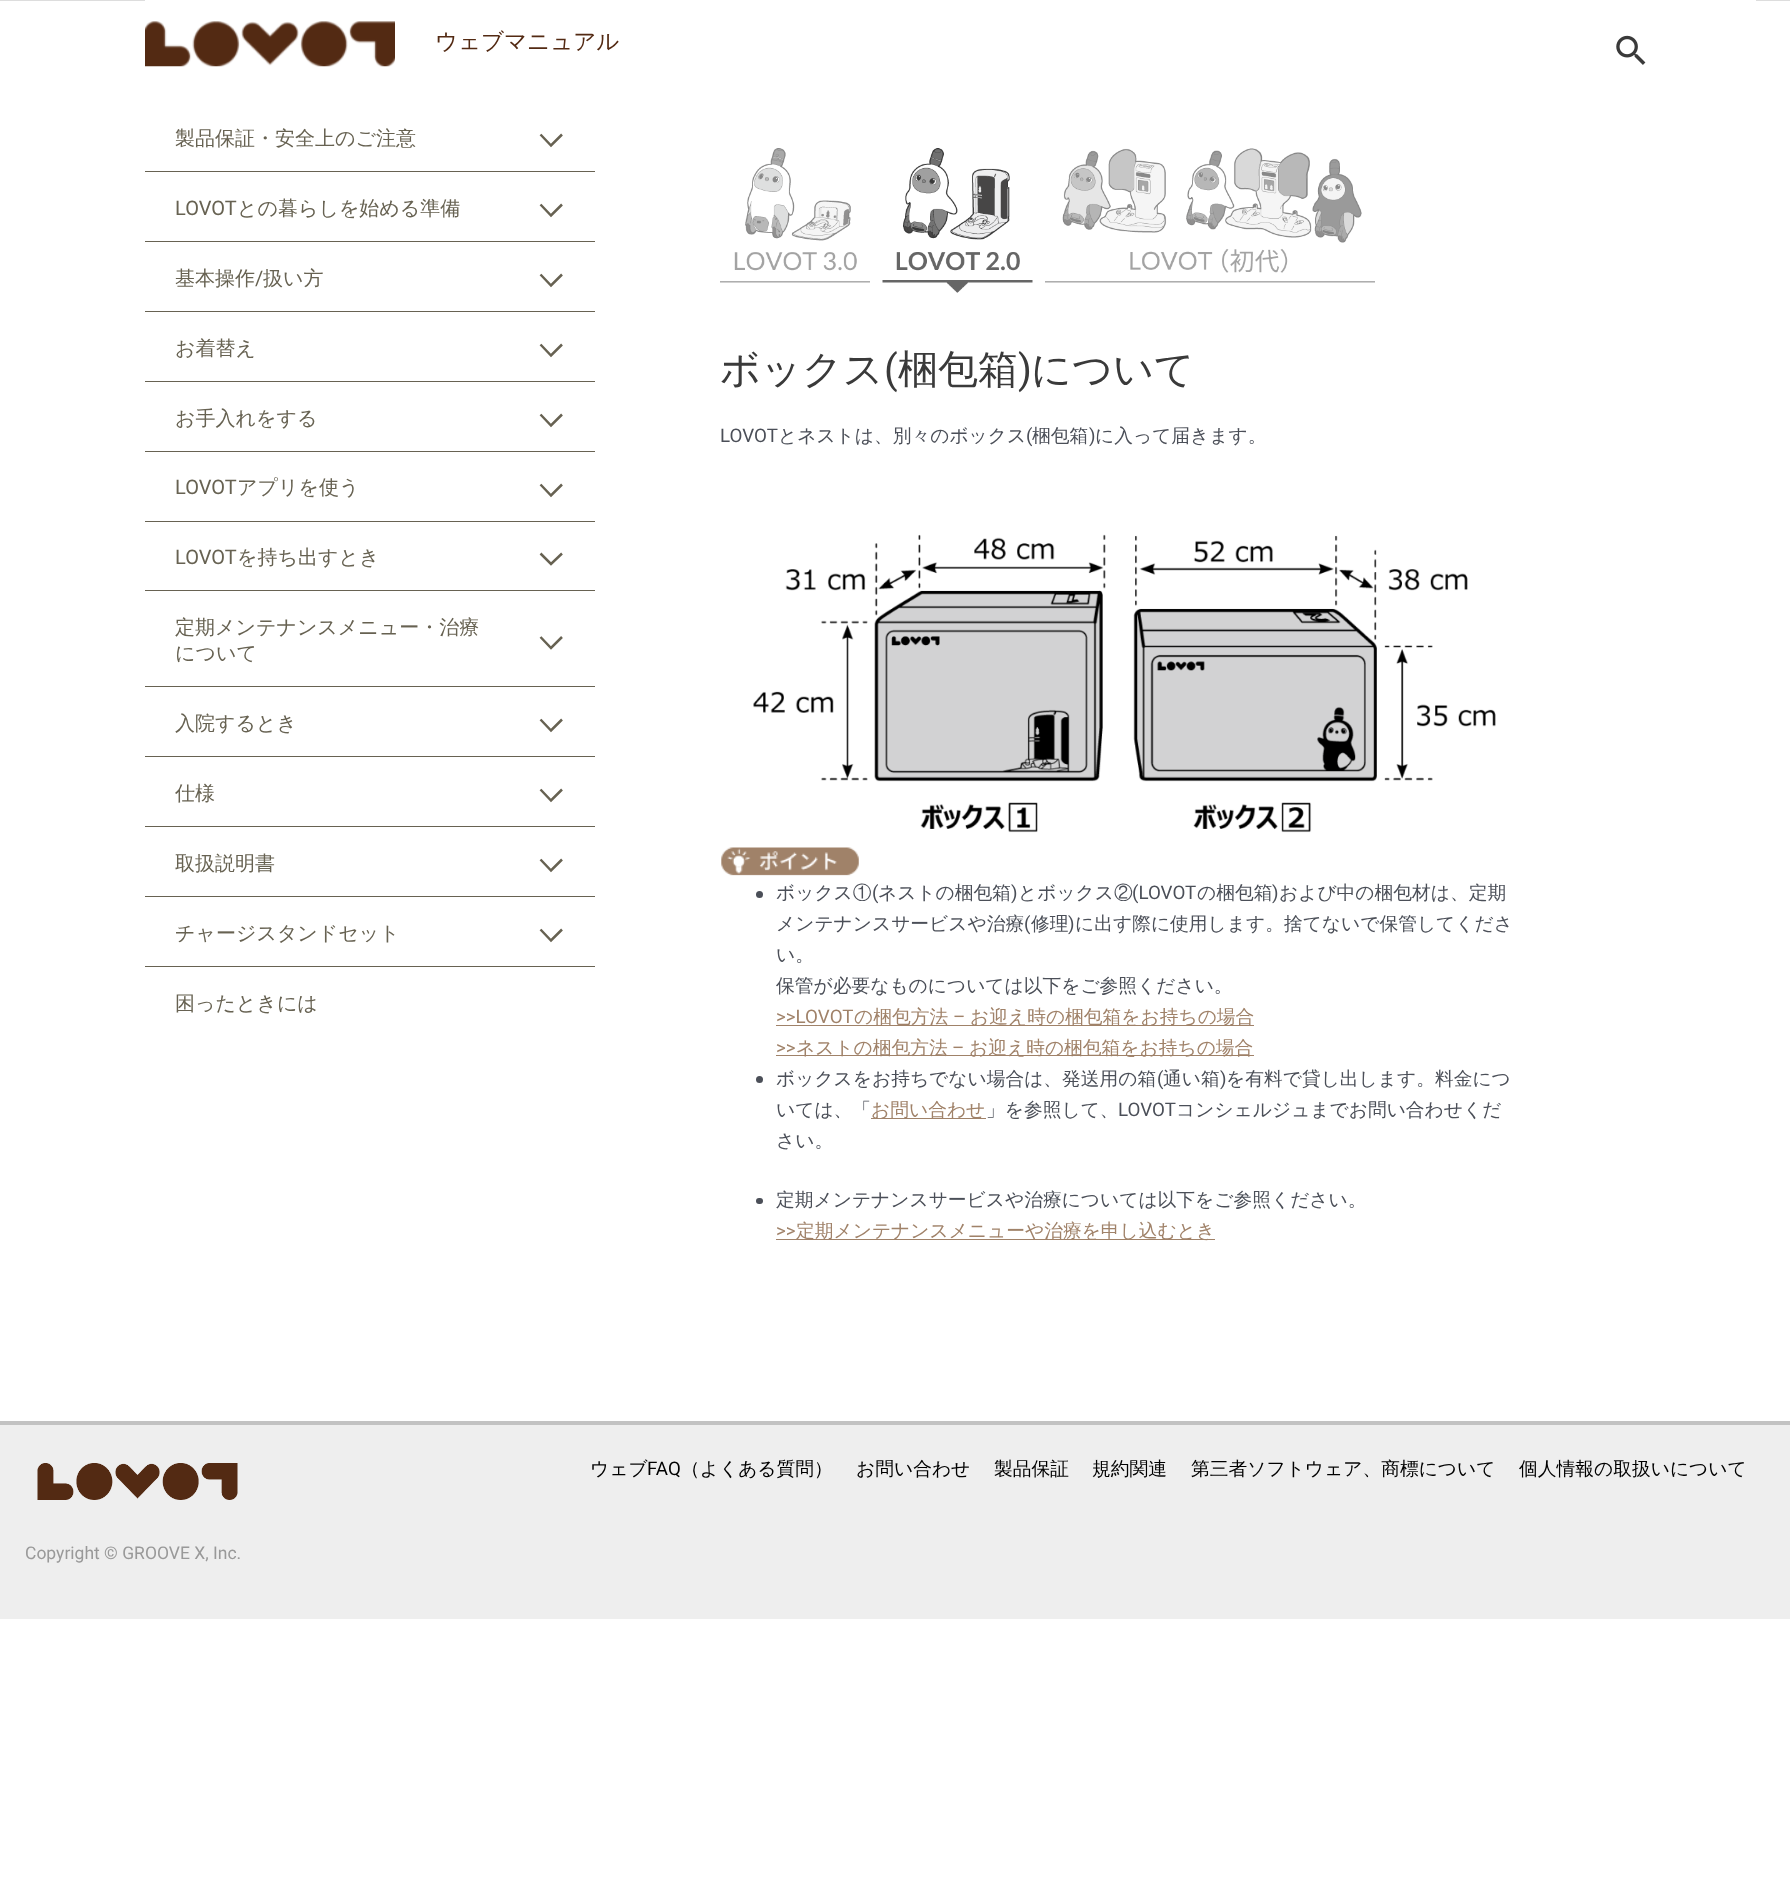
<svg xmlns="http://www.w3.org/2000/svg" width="1790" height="1885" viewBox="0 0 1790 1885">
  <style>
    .t1 { font: 500 22.5px WenQuanYi Zen Hei; fill: #532a13; }
    .t2 { font: 500 20px WenQuanYi Zen Hei; fill: #676252; }
    .t3 { font: 20px Roboto; fill: #676252; }
    .t4 { font: 500 40px WenQuanYi Zen Hei; fill: #3a3a3a; }
    .t5 { font: 40px Roboto; fill: #3a3a3a; }
    .t6 { font: 18.75px Roboto; fill: #4b4f58; }
    .t7 { font: 500 18.75px WenQuanYi Zen Hei; fill: #4b4f58; }
    .t8 { font: 18.75px Roboto; fill: #a08269; }
    .t9 { font: 500 18.75px WenQuanYi Zen Hei; fill: #a08269; }
    .t10 { font: 500 18.75px WenQuanYi Zen Hei; fill: #000; }
    .t11 { font: 18.75px Roboto; fill: #000; }
    .t12 { font: 17.5px Roboto; fill: #999; }
  </style>
  <rect width="100%" height="100%" fill="#fff"/>
  <rect x="0" y="0" width="1790" height="1" fill="#ddd"/>
  <rect x="145" y="0" width="1611" height="1" fill="#fff"/>
  <image x="145" y="21" width="250" height="46" href="images/1.png"/>
  <text x="435" y="49" class="t1">ウェブマニュアル</text>
  <image x="1616" y="35" width="30" height="30" href="images/2.png"/>
  <rect x="145" y="171" width="450" height="1" fill="#676252"/>
  <text x="175" y="145" class="t2">製品保証・安全上のご注意</text>
  <path d="M562 134.5L551 145.5L540.5 134.5" fill="none" stroke="#676252" stroke-width="2.5"/>
  <rect x="145" y="241" width="450" height="1" fill="#676252"/>
  <text x="175" y="215" class="t3">LOVOT</text>
  <text x="237" y="215" class="t2">との暮らしを始める準備</text>
  <path d="M562 204.5L551 215.5L540.5 204.5" fill="none" stroke="#676252" stroke-width="2.5"/>
  <rect x="145" y="311" width="450" height="1" fill="#676252"/>
  <text x="175" y="285" class="t2">基本操作</text>
  <text x="255" y="285" class="t3">/</text>
  <text x="263" y="285" class="t2">扱い方</text>
  <path d="M562 274.5L551 285.5L540.5 274.5" fill="none" stroke="#676252" stroke-width="2.5"/>
  <rect x="145" y="381" width="450" height="1" fill="#676252"/>
  <text x="175" y="355" class="t2">お着替え</text>
  <path d="M562 344.5L551 355.5L540.5 344.5" fill="none" stroke="#676252" stroke-width="2.5"/>
  <rect x="145" y="451" width="450" height="1" fill="#676252"/>
  <text x="175" y="425" class="t2">お手入れをする</text>
  <path d="M562 414.5L551 425.5L540.5 414.5" fill="none" stroke="#676252" stroke-width="2.5"/>
  <rect x="145" y="521" width="450" height="1" fill="#676252"/>
  <text x="175" y="494" class="t3">LOVOT</text>
  <text x="237" y="494" class="t2">アプリを使う</text>
  <path d="M562 484.5L551 495.5L540.5 484.5" fill="none" stroke="#676252" stroke-width="2.5"/>
  <rect x="145" y="590" width="450" height="1" fill="#676252"/>
  <text x="175" y="564" class="t3">LOVOT</text>
  <text x="237" y="564" class="t2">を持ち出すとき</text>
  <path d="M562 553.5L551 564L540.5 553.5" fill="none" stroke="#676252" stroke-width="2.5"/>
  <rect x="145" y="686" width="450" height="1" fill="#676252"/>
  <text x="175" y="634" class="t2">定期メンテナンスメニュー・治療</text>
  <text x="175" y="660" class="t2">について</text>
  <path d="M562 637L551 648L540.5 637" fill="none" stroke="#676252" stroke-width="2.5"/>
  <rect x="145" y="756" width="450" height="1" fill="#676252"/>
  <text x="175" y="730" class="t2">入院するとき</text>
  <path d="M562 719.5L551 730.5L540.5 719.5" fill="none" stroke="#676252" stroke-width="2.5"/>
  <rect x="145" y="826" width="450" height="1" fill="#676252"/>
  <text x="175" y="800" class="t2">仕様</text>
  <path d="M562 789.5L551 800.5L540.5 789.5" fill="none" stroke="#676252" stroke-width="2.5"/>
  <rect x="145" y="896" width="450" height="1" fill="#676252"/>
  <text x="175" y="870" class="t2">取扱説明書</text>
  <path d="M562 859.5L551 870.5L540.5 859.5" fill="none" stroke="#676252" stroke-width="2.5"/>
  <rect x="145" y="966" width="450" height="1" fill="#676252"/>
  <text x="175" y="940" class="t2">チャージスタンドセット</text>
  <path d="M562 929.5L551 940.5L540.5 929.5" fill="none" stroke="#676252" stroke-width="2.5"/>
  <text x="175" y="1010" class="t2">困ったときには</text>
  <image x="720" y="148" width="150" height="135" href="images/3.png"/>
  <image x="882" y="148" width="151" height="145" href="images/4.png"/>
  <image x="1045" y="148" width="330" height="135" href="images/5.png"/>
  <text x="720" y="383" class="t4">ボックス</text>
  <text x="884" y="383" class="t5">(</text>
  <text x="898" y="383" class="t4">梱包箱</text>
  <text x="1018" y="383" class="t5">)</text>
  <text x="1031" y="383" class="t4">について</text>
  <text x="720" y="442" class="t6">LOVOT</text>
  <text x="778" y="442" class="t7">とネストは、別々のボックス</text>
  <text x="1026" y="442" class="t6">(</text>
  <text x="1032" y="442" class="t7">梱包箱</text>
  <text x="1089" y="442" class="t6">)</text>
  <text x="1095" y="442" class="t7">に入って届きます。</text>
  <image x="753" y="534" width="743" height="299" href="images/6.png"/>
  <image x="721" y="847" width="138" height="29" href="images/7.png"/>
  <circle cx="759.5" cy="894.5" r="3.5" fill="#4b4f58"/>
  <text x="776" y="899" class="t7">ボックス①</text>
  <text x="872" y="899" class="t6">(</text>
  <text x="878" y="899" class="t7">ネストの梱包箱</text>
  <text x="1011" y="899" class="t6">)</text>
  <text x="1018" y="899" class="t7">とボックス②</text>
  <text x="1132" y="899" class="t6">(LOVOT</text>
  <text x="1197" y="899" class="t7">の梱包箱</text>
  <text x="1272" y="899" class="t6">)</text>
  <text x="1279" y="899" class="t7">および中の梱包材は、定期</text>
  <text x="776" y="930" class="t7">メンテナンスサービスや治療</text>
  <text x="1024" y="930" class="t6">(</text>
  <text x="1031" y="930" class="t7">修理</text>
  <text x="1068" y="930" class="t6">)</text>
  <text x="1075" y="930" class="t7">に出す際に使用します。捨てないで保管してくださ</text>
  <text x="776" y="961" class="t7">い。</text>
  <text x="776" y="992" class="t7">保管が必要なものについては以下をご参照ください。</text>
  <text x="776" y="1023" class="t8">&gt;&gt;LOVOT</text>
  <rect x="776" y="1025" width="478" height="1" fill="#a08269"/>
  <text x="854" y="1023" class="t9">の梱包方法</text>
  <text x="953" y="1023" class="t8">–</text>
  <text x="970" y="1023" class="t9">お迎え時の梱包箱をお持ちの場合</text>
  <text x="776" y="1054" class="t8">&gt;&gt;</text>
  <rect x="776" y="1055" width="478" height="1" fill="#a08269"/>
  <text x="796" y="1054" class="t9">ネストの梱包方法</text>
  <text x="952" y="1054" class="t8">–</text>
  <text x="969" y="1054" class="t9">お迎え時の梱包箱をお持ちの場合</text>
  <circle cx="759.5" cy="1079.5" r="3.5" fill="#4b4f58"/>
  <text x="776" y="1085" class="t7">ボックスをお持ちでない場合は、発送用の箱</text>
  <text x="1157" y="1085" class="t6">(</text>
  <text x="1163" y="1085" class="t7">通い箱</text>
  <text x="1220" y="1085" class="t6">)</text>
  <text x="1226" y="1085" class="t7">を有料で貸し出します。料金につ</text>
  <text x="776" y="1116" class="t7">いては、「</text>
  <rect x="871" y="1118" width="115" height="1" fill="#a08269"/>
  <text x="871" y="1116" class="t9">お問い合わせ</text>
  <text x="986" y="1116" class="t7">」を参照して、</text>
  <text x="1118" y="1116" class="t6">LOVOT</text>
  <text x="1176" y="1116" class="t7">コンシェルジュまでお問い合わせくだ</text>
  <text x="776" y="1147" class="t7">さい。</text>
  <rect x="756" y="1198" width="7" height="6" rx="3" fill="#4b4f58"/>
  <text x="776" y="1206" class="t7">定期メンテナンスサービスや治療については以下をご参照ください。</text>
  <text x="776" y="1237" class="t8">&gt;&gt;</text>
  <rect x="776" y="1239" width="439" height="1" fill="#a08269"/>
  <text x="796" y="1237" class="t9">定期メンテナンスメニューや治療を申し込むとき</text>
  <rect x="0" y="1425" width="1790" height="194" fill="#eee"/>
  <rect x="0" y="1421" width="1790" height="4" fill="#c2c2c2"/>
  <image x="37" y="1463" width="201" height="37" href="images/8.png"/>
  <text x="590" y="1475" class="t10">ウェブ</text>
  <text x="647" y="1475" class="t11">FAQ</text>
  <text x="681" y="1475" class="t10">（よくある質問）</text>
  <text x="856" y="1475" class="t10">お問い合わせ</text>
  <text x="994" y="1475" class="t10">製品保証</text>
  <text x="1092" y="1475" class="t10">規約関連</text>
  <text x="1191" y="1475" class="t10">第三者ソフトウェア、商標について</text>
  <text x="1519" y="1475" class="t10">個人情報の取扱いについて</text>
  <text x="25" y="1559" class="t12">Copyright © GROOVE X, Inc.</text>
</svg>
